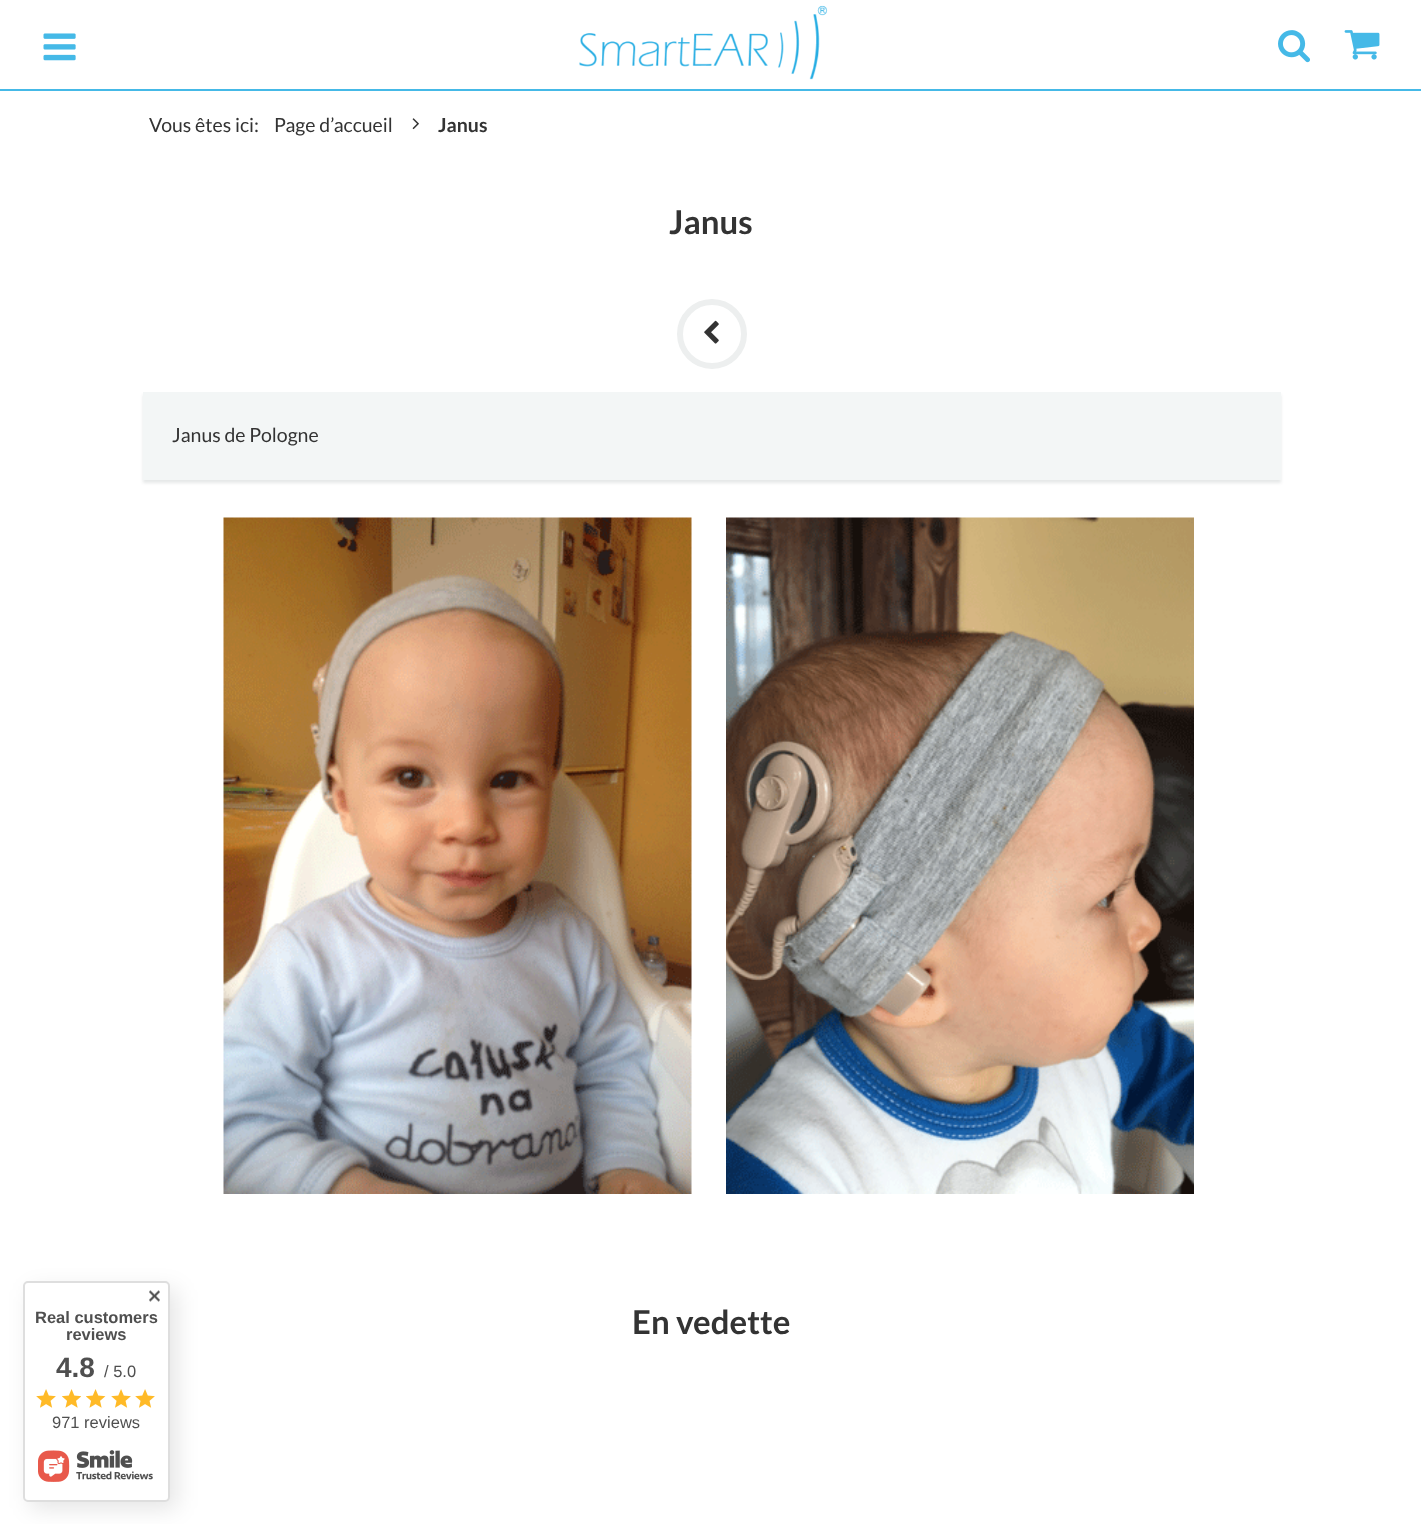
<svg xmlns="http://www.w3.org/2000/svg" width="1421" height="1524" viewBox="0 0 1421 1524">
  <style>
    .t1 { font: 19.5px Lato; fill: #333; }
    .t2 { font: bold 19.5px Lato; fill: #333; }
    .t3 { font: bold 33px Lato; fill: #333; }
    .t4 { font: bold 16.5px Liberation Sans; fill: #4f4f4f; }
    .t5 { font: bold 28px Liberation Sans; fill: #4f4f4f; }
    .t6 { font: 16.5px Liberation Sans; fill: #4f4f4f; }
  </style>
  <rect width="100%" height="100%" fill="#fff"/>
  <image x="43" y="33" width="33" height="28" href="images/1.png"/>
  <image x="579" y="5" width="249" height="75" href="images/2.png"/>
  <image x="1278" y="30" width="32" height="33" href="images/3.png"/>
  <image x="1344" y="30" width="36" height="30" href="images/4.png"/>
  <rect x="0" y="89" width="1421" height="2" fill="#45b9e7"/>
  <text x="149" y="132" class="t1">Vous êtes ici:</text>
  <text x="274" y="132" class="t1">Page d’accueil</text>
  <image x="412" y="118" width="7" height="12" href="images/5.png"/>
  <text x="438" y="132" class="t2">Janus</text>
  <text x="669" y="234" class="t3">Janus</text>
  <circle cx="712" cy="334" r="32" fill="none" stroke="#edefef" stroke-width="6"/>
  <image x="704" y="320" width="15" height="24" href="images/6.png"/>
  <rect x="143" y="395" width="1138" height="88" fill="#0b191c1a" filter="blur(1.5px)"/>
  <rect x="143" y="392" width="1138" height="88" fill="#f3f6f6"/>
  <text x="172" y="442" class="t1">Janus de Pologne</text>
  <image x="223" y="517" width="469" height="677" href="images/7.png"/>
  <image x="726" y="517" width="468" height="677" href="images/8.png"/>
  <text x="632" y="1334" class="t3">En vedette</text>
  <rect x="30" y="1289" width="147" height="220" rx="5" fill="#0000001a" filter="blur(11px)"/>
  <rect x="24" y="1282" width="145" height="219" rx="4" fill="#fff" stroke="#dedede" stroke-width="2"/>
  <image x="149" y="1290" width="11" height="12" href="images/9.png"/>
  <text x="35" y="1323" class="t4">Real customers</text>
  <text x="66" y="1340" class="t4">reviews</text>
  <text x="56" y="1377" class="t5">4.8</text>
  <text x="104" y="1377" class="t6">/ 5.0</text>
  <image x="36" y="1389" width="20" height="19" href="images/10.png"/>
  <image x="62" y="1389" width="19" height="19" href="images/11.png"/>
  <image x="86" y="1389" width="20" height="19" href="images/12.png"/>
  <image x="111" y="1389" width="20" height="19" href="images/10.png"/>
  <image x="135" y="1389" width="20" height="19" href="images/10.png"/>
  <text x="52" y="1428" class="t6">971 reviews</text>
  <image x="38" y="1450" width="115" height="32" href="images/13.png"/>
</svg>
